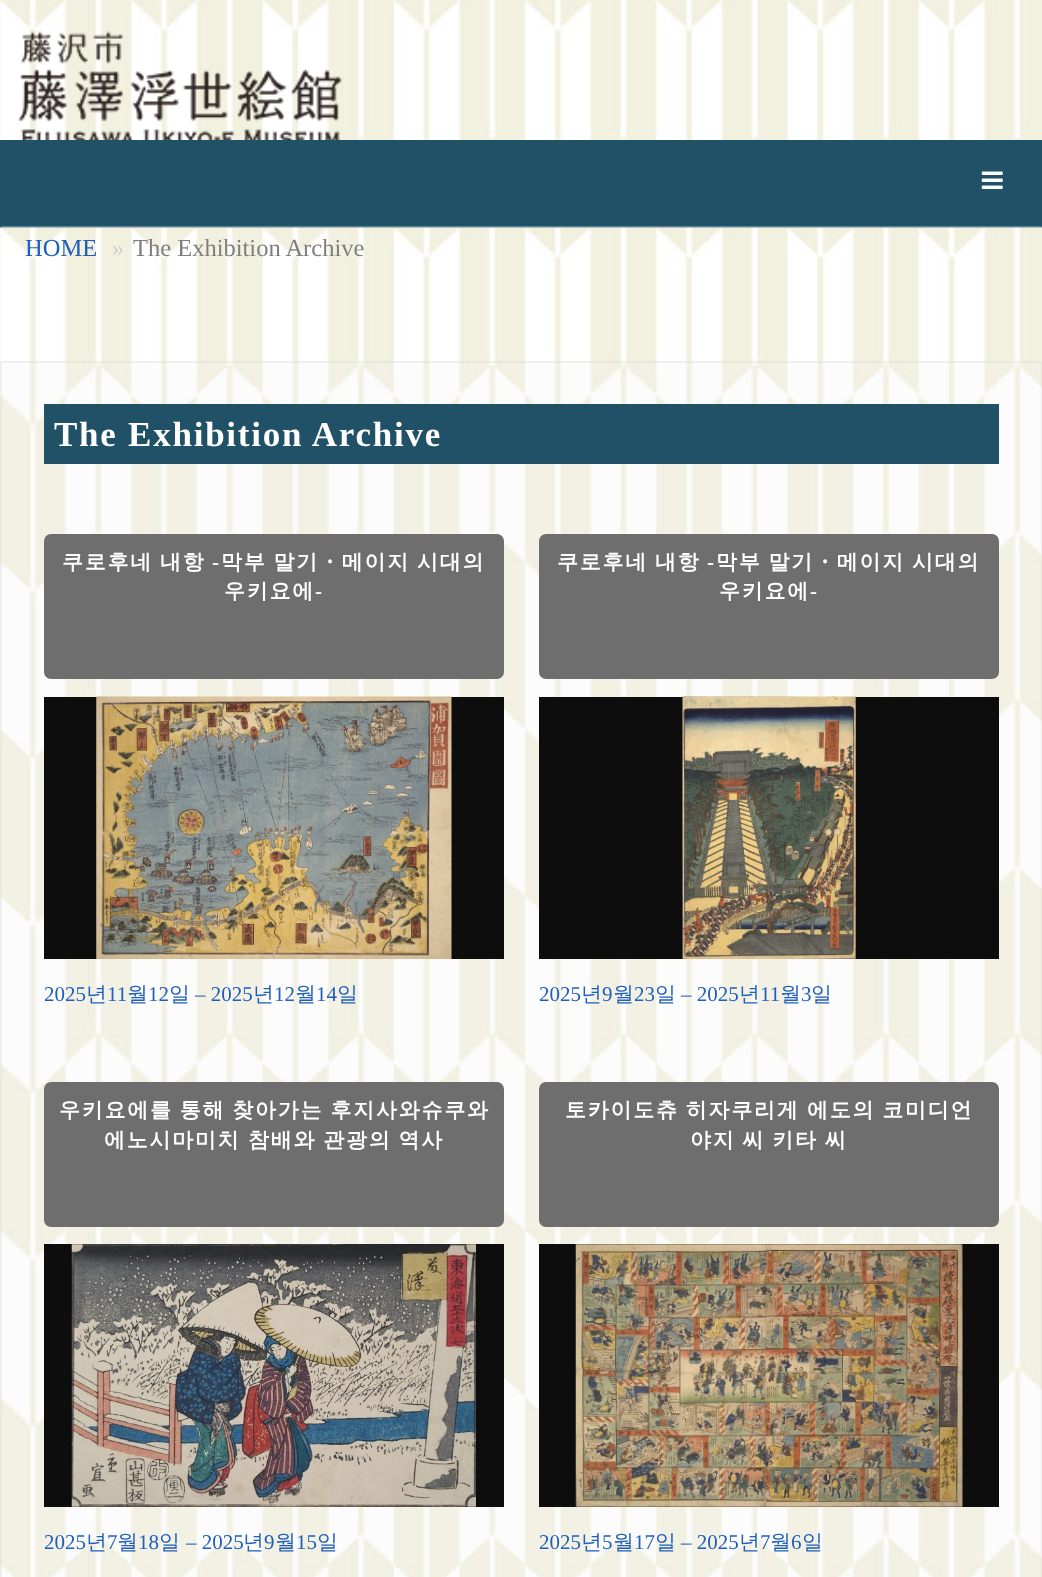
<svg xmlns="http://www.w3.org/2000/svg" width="1042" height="1577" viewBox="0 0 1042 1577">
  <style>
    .t1 { font: 24.5px Liberation Serif; fill: #1e5ebd; }
    .t2 { font: 24.5px Liberation Serif; fill: #cfcfcf; }
    .t3 { font: 24.5px Liberation Serif; fill: #7e7e7e; }
    .t4 { font: bold 35px Liberation Serif; letter-spacing: 1.75px; fill: #fff; }
    .t5 { font: bold 21px WenQuanYi Zen Hei; letter-spacing: 1.75px; fill: #fff; }
    .t6 { font: bold 21px Liberation Serif; letter-spacing: 1.75px; fill: #fff; }
    .t7 { font: 21px Liberation Serif; fill: #1e5ebd; }
    .t8 { font: 500 21px WenQuanYi Zen Hei; fill: #1e5ebd; }
  </style>
  <rect width="100%" height="100%" fill="#fff"/>
  <image x="0" y="0" width="1042" height="140" href="images/1.png"/>
  <image x="18" y="31" width="324" height="109" href="images/2.png"/>
  <rect x="0" y="140" width="1042" height="88" fill="#205167"/>
  <path d="M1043 228H0L2 226H1041Z" fill="#638595"/>
  <image x="981" y="171" width="22" height="18" href="images/3.png"/>
  <image x="0" y="227" width="1042" height="1350" href="images/4.png"/>
  <text x="25" y="256" class="t1">HOME</text>
  <text x="112" y="256" class="t2">»</text>
  <text x="133" y="256" class="t3">The Exhibition Archive</text>
  <rect x="1" y="362" width="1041" height="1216" fill="none" stroke="#c1c1c133" stroke-width="2"/>
  <rect x="44" y="404" width="955" height="60" fill="#205167"/>
  <text x="54" y="446" class="t4">The Exhibition Archive</text>
  <rect x="44" y="534" width="460" height="145" rx="7" fill="#6e6e6e"/>
  <text x="62" y="569" word-spacing="-1" class="t5">쿠로후네 내항</text>
  <text x="212" y="569" class="t6">-</text>
  <text x="221" y="569" word-spacing="-1" class="t5">막부 말기・메이지 시대의</text>
  <text x="224" y="598" class="t5">우키요에</text>
  <text x="315" y="598" class="t6">-</text>
  <rect x="44" y="697" width="460" height="262" fill="#0d0d0d"/>
  <image x="96" y="696" width="356" height="263" href="images/5.png"/>
  <text x="44" y="1001" class="t7">2025</text>
  <text x="86" y="1001" class="t8">년</text>
  <text x="107" y="1001" class="t7">11</text>
  <text x="127" y="1001" class="t8">월</text>
  <text x="148" y="1001" class="t7">12</text>
  <text x="169" y="1001" class="t8">일</text>
  <text x="195" y="1001" class="t7">– 2025</text>
  <text x="253" y="1001" class="t8">년</text>
  <text x="274" y="1001" class="t7">12</text>
  <text x="295" y="1001" class="t8">월</text>
  <text x="316" y="1001" class="t7">14</text>
  <text x="337" y="1001" class="t8">일</text>
  <rect x="539" y="534" width="460" height="145" rx="7" fill="#6e6e6e"/>
  <text x="557" y="569" word-spacing="-1" class="t5">쿠로후네 내항</text>
  <text x="707" y="569" class="t6">-</text>
  <text x="716" y="569" word-spacing="-1" class="t5">막부 말기・메이지 시대의</text>
  <text x="719" y="598" class="t5">우키요에</text>
  <text x="810" y="598" class="t6">-</text>
  <rect x="539" y="697" width="460" height="262" fill="#0d0d0d"/>
  <image x="682" y="696" width="174" height="263" href="images/6.png"/>
  <text x="539" y="1001" class="t7">2025</text>
  <text x="581" y="1001" class="t8">년</text>
  <text x="602" y="1001" class="t7">9</text>
  <text x="613" y="1001" class="t8">월</text>
  <text x="634" y="1001" class="t7">23</text>
  <text x="655" y="1001" class="t8">일</text>
  <text x="681" y="1001" class="t7">– 2025</text>
  <text x="739" y="1001" class="t8">년</text>
  <text x="760" y="1001" class="t7">11</text>
  <text x="780" y="1001" class="t8">월</text>
  <text x="801" y="1001" class="t7">3</text>
  <text x="811" y="1001" class="t8">일</text>
  <rect x="44" y="1082" width="460" height="145" rx="7" fill="#6e6e6e"/>
  <text x="59" y="1117" word-spacing="-1" class="t5">우키요에를 통해 찾아가는 후지사와슈쿠와</text>
  <text x="104" y="1147" class="t5">에노시마미치</text>
  <text x="248" y="1147" word-spacing="-1" class="t5">참배와 관광의 역사</text>
  <rect x="44" y="1244" width="460" height="263" fill="#0d0d0d"/>
  <image x="71" y="1244" width="405" height="263" href="images/7.png"/>
  <text x="44" y="1549" class="t7">2025</text>
  <text x="86" y="1549" class="t8">년</text>
  <text x="107" y="1549" class="t7">7</text>
  <text x="117" y="1549" class="t8">월</text>
  <text x="138" y="1549" class="t7">18</text>
  <text x="159" y="1549" class="t8">일</text>
  <text x="186" y="1549" class="t7">– 2025</text>
  <text x="243" y="1549" class="t8">년</text>
  <text x="264" y="1549" class="t7">9</text>
  <text x="275" y="1549" class="t8">월</text>
  <text x="296" y="1549" class="t7">15</text>
  <text x="317" y="1549" class="t8">일</text>
  <rect x="539" y="1082" width="460" height="145" rx="7" fill="#6e6e6e"/>
  <text x="565" y="1117" word-spacing="-1" class="t5">토카이도츄 히자쿠리게</text>
  <text x="807" y="1117" word-spacing="-1" class="t5">에도의 코미디언</text>
  <text x="690" y="1147" word-spacing="-1" class="t5">야지 씨 키타 씨</text>
  <rect x="539" y="1244" width="460" height="263" fill="#0d0d0d"/>
  <image x="575" y="1244" width="388" height="263" href="images/8.png"/>
  <text x="539" y="1549" class="t7">2025</text>
  <text x="581" y="1549" class="t8">년</text>
  <text x="602" y="1549" class="t7">5</text>
  <text x="613" y="1549" class="t8">월</text>
  <text x="634" y="1549" class="t7">17</text>
  <text x="655" y="1549" class="t8">일</text>
  <text x="681" y="1549" class="t7">– 2025</text>
  <text x="739" y="1549" class="t8">년</text>
  <text x="760" y="1549" class="t7">7</text>
  <text x="770" y="1549" class="t8">월</text>
  <text x="791" y="1549" class="t7">6</text>
  <text x="802" y="1549" class="t8">일</text>
</svg>
